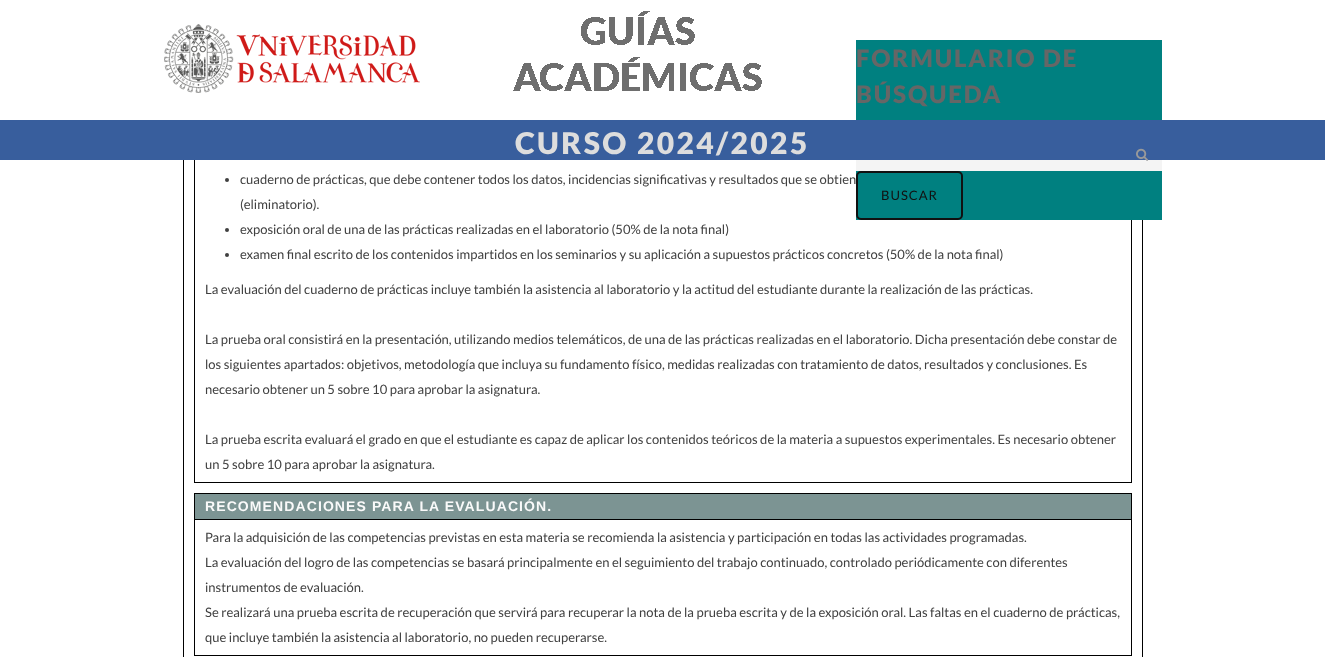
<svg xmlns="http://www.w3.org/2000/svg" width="1325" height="657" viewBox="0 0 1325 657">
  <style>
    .t1 { font: 900 30px Lato; letter-spacing: 2.4px; fill: #ddd; }
    .t2 { font: 900 24px Lato; letter-spacing: 1.9px; fill: #666; }
    .t3 { font: 13px Lato; letter-spacing: 1px; fill: #111; }
    .t4 { font: 13px Lato; fill: #404040; }
    .t5 { font: bold 14px Liberation Sans; letter-spacing: 1.1px; fill: #fafafa; }
  </style>
  <rect width="100%" height="100%" fill="#fff"/>
  <rect x="183.5" y="-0.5" width="959" height="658" fill="none" stroke="#000"/>
  <rect x="183" y="0" width="960" height="120" fill="#fff"/>
  <rect x="194.5" y="136.5" width="937" height="346" fill="none" stroke="#000"/>
  <rect x="856" y="40" width="306" height="180" fill="#008080"/>
  <rect x="0" y="120" width="1325" height="40" fill="#385e9d"/>
  <text x="515" y="154" class="t1">CURSO 2024/2025</text>
  <image x="164" y="24" width="256" height="69" href="images/1.png"/>
  <image x="513" y="11" width="249" height="80" href="images/2.png"/>
  <text x="856" y="67" class="t2">FORMULARIO DE</text>
  <text x="856" y="103" class="t2">BÚSQUEDA</text>
  <rect x="856" y="160" width="306" height="11" fill="#f4f4f4"/>
  <image x="1136" y="148" width="12" height="13" href="images/3.png"/>
  <rect x="857" y="172" width="105" height="47" rx="4" fill="none" stroke="#111" stroke-width="2"/>
  <text x="881" y="200" class="t3">BUSCAR</text>
  <circle cx="227" cy="180" r="2" fill="#404040"/>
  <text x="240" y="184" class="t4">cuaderno de prácticas, que debe contener todos los datos, incidencias significativas y resultados que se obtien</text>
  <text x="240" y="209" class="t4">(eliminatorio).</text>
  <circle cx="227" cy="230" r="2" fill="#404040"/>
  <text x="240" y="234" class="t4">exposición oral de una de las prácticas realizadas en el laboratorio (50% de la nota final)</text>
  <circle cx="227" cy="255" r="2" fill="#404040"/>
  <text x="240" y="259" class="t4">examen final escrito de los contenidos impartidos en los seminarios y su aplicación a supuestos prácticos concretos (50% de la nota final)</text>
  <text x="205" y="294" class="t4">La evaluación del cuaderno de prácticas incluye también la asistencia al laboratorio y la actitud del estudiante durante la realización de las prácticas.</text>
  <text x="205" y="344" class="t4">La prueba oral consistirá en la presentación, utilizando medios telemáticos, de una de las prácticas realizadas en el laboratorio. Dicha presentación debe constar de</text>
  <text x="205" y="369" class="t4">los siguientes apartados: objetivos, metodología que incluya su fundamento físico, medidas realizadas con tratamiento de datos, resultados y conclusiones. Es</text>
  <text x="205" y="394" class="t4">necesario obtener un 5 sobre 10 para aprobar la asignatura.</text>
  <text x="205" y="444" class="t4">La prueba escrita evaluará el grado en que el estudiante es capaz de aplicar los contenidos teóricos de la materia a supuestos experimentales. Es necesario obtener</text>
  <text x="205" y="469" class="t4">un 5 sobre 10 para aprobar la asignatura.</text>
  <rect x="195" y="494" width="936" height="25" fill="#7c9493"/>
  <rect x="194" y="493" width="938" height="1" fill="#000"/>
  <rect x="1131" y="493" width="1" height="26" fill="#000"/>
  <rect x="194" y="493" width="1" height="26" fill="#000"/>
  <text x="205" y="511" class="t5">RECOMENDACIONES PARA LA EVALUACIÓN.</text>
  <rect x="194.5" y="519.5" width="937" height="136" fill="none" stroke="#000"/>
  <text x="205" y="542" class="t4">Para la adquisición de las competencias previstas en esta materia se recomienda la asistencia y participación en todas las actividades programadas.</text>
  <text x="205" y="567" class="t4">La evaluación del logro de las competencias se basará principalmente en el seguimiento del trabajo continuado, controlado periódicamente con diferentes</text>
  <text x="205" y="592" class="t4">instrumentos de evaluación.</text>
  <text x="205" y="617" class="t4">Se realizará una prueba escrita de recuperación que servirá para recuperar la nota de la prueba escrita y de la exposición oral. Las faltas en el cuaderno de prácticas,</text>
  <text x="205" y="642" class="t4">que incluye también la asistencia al laboratorio, no pueden recuperarse.</text>
</svg>
